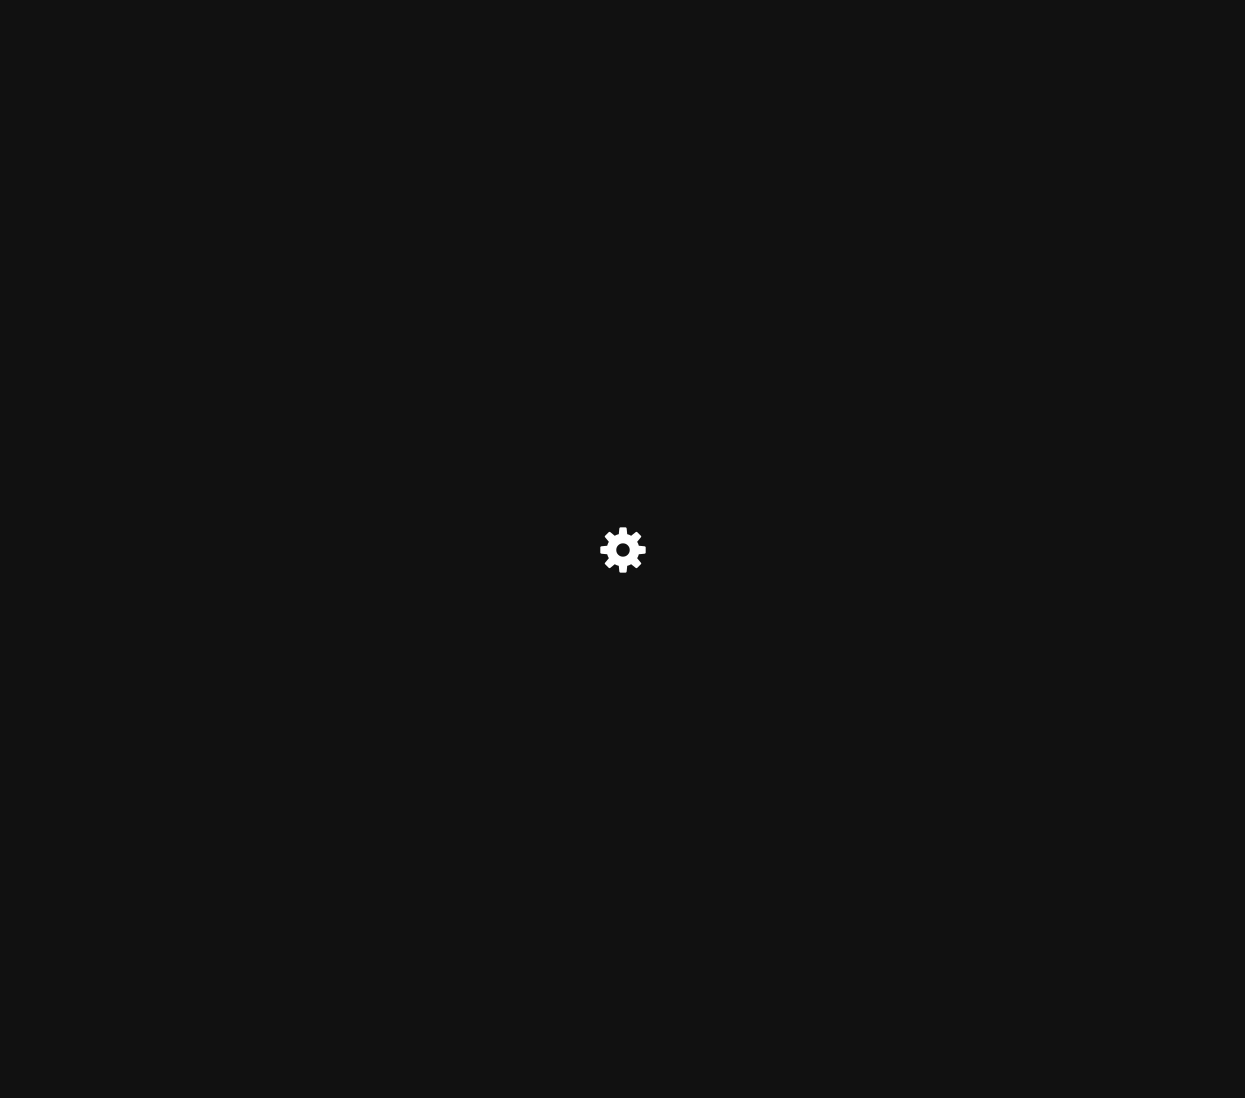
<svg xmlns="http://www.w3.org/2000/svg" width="1245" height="1098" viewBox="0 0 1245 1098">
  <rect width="100%" height="100%" fill="#111"/>
  <image x="600" y="527" width="46" height="46" href="images/1.png"/>
</svg>
